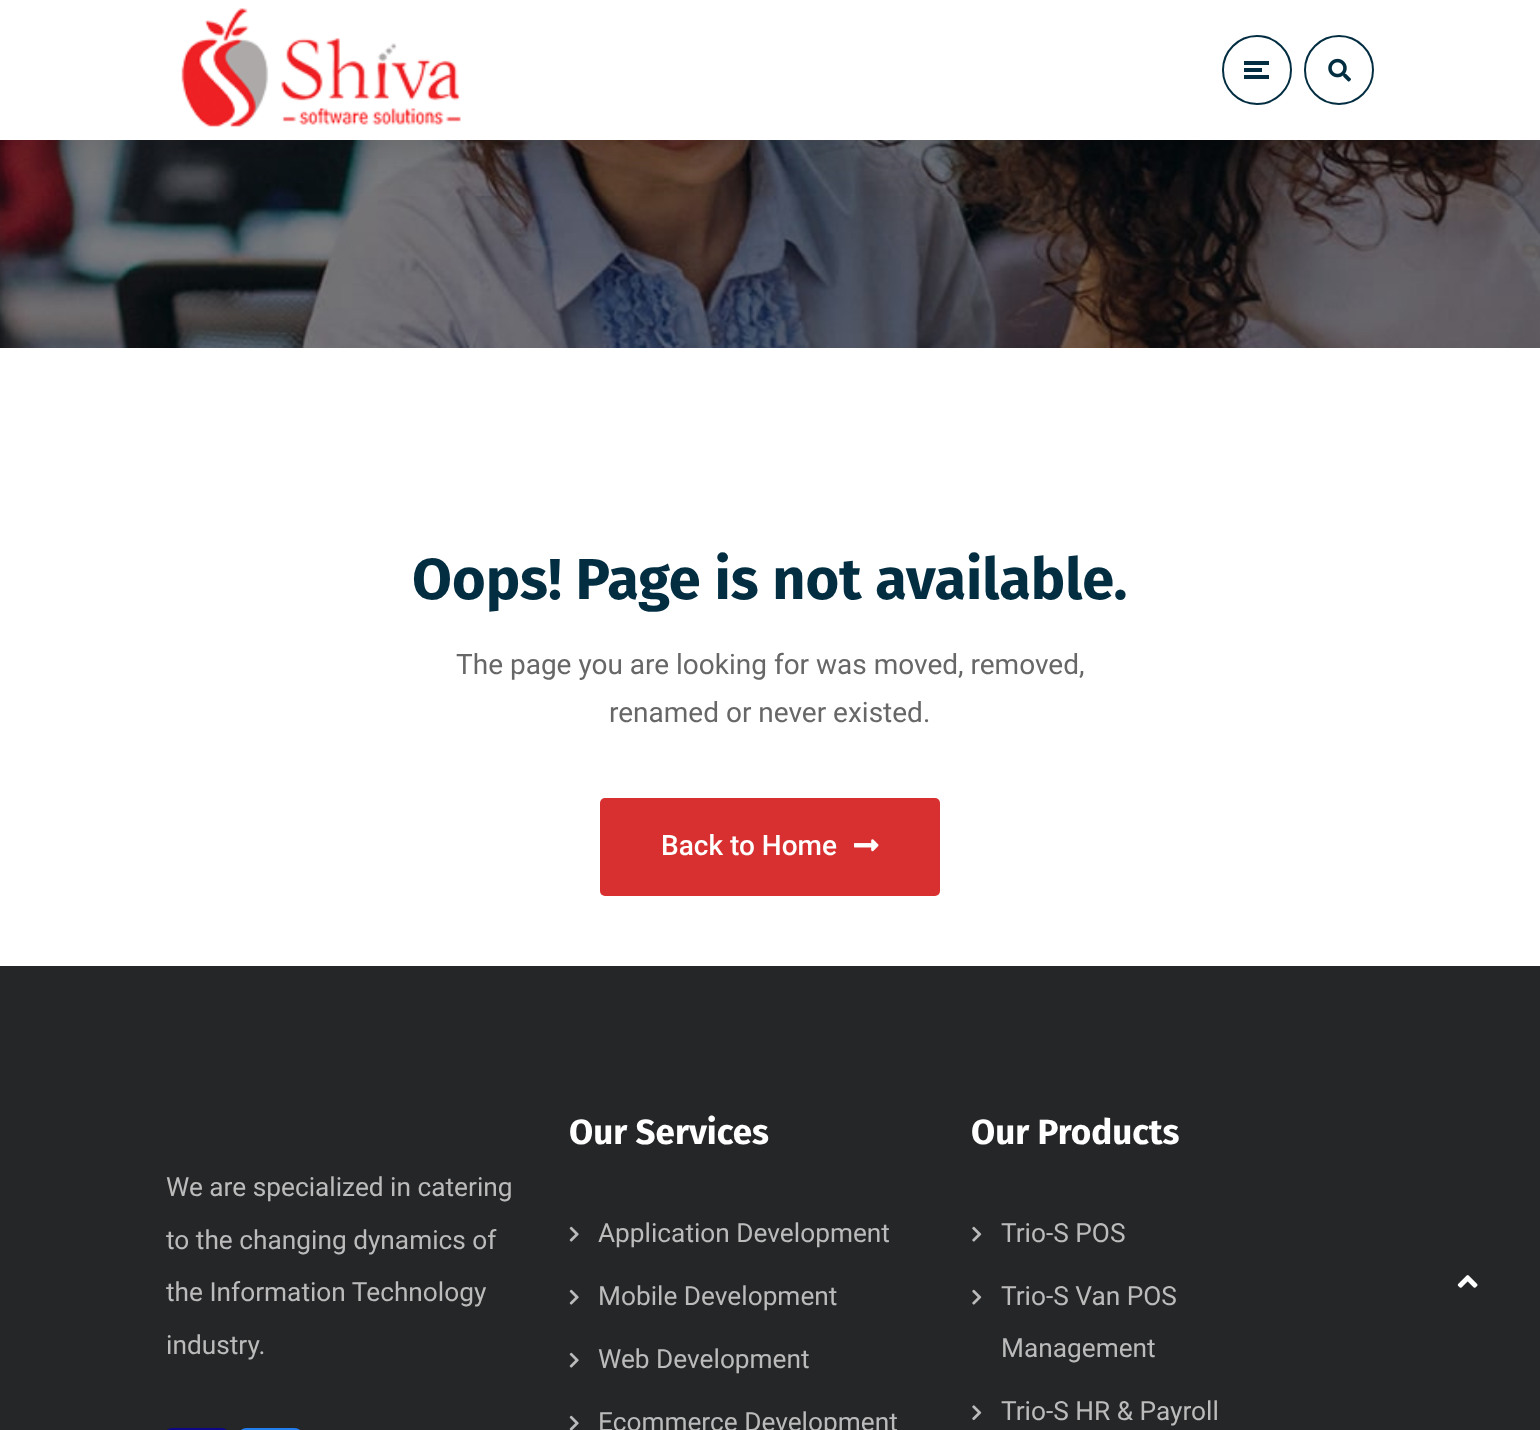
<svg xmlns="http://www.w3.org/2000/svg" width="1540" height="1430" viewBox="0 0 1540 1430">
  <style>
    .t1 { font: bold 57.75px Fira Sans; fill: #032e42; }
    .t2 { font: 28px Roboto; fill: #676767; }
    .t3 { font: 500 28px Roboto; fill: #fff; }
    .t4 { font: 26.25px Roboto; fill: #bbb; }
    .t5 { font: bold 35px Fira Sans; fill: #fff; }
  </style>
  <rect width="100%" height="100%" fill="#fff"/>
  <image x="0" y="140" width="1540" height="208" href="images/3.png"/>
  <rect x="0" y="0" width="1540" height="140" fill="#00000033" filter="blur(26px)"/>
  <rect x="0" y="0" width="1540" height="140" fill="#fff"/>
  <image x="181" y="8" width="280" height="119" href="images/1.png"/>
  <circle cx="1257" cy="70" r="34" fill="none" stroke="#032e42" stroke-width="2"/>
  <rect x="1244" y="61" width="25" height="4" fill="#032e42"/>
  <rect x="1244" y="68" width="18" height="4" fill="#032e42"/>
  <rect x="1244" y="75" width="25" height="4" fill="#032e42"/>
  <circle cx="1339" cy="70" r="34" fill="none" stroke="#032e42" stroke-width="2"/>
  <image x="1328" y="58" width="23" height="24" href="images/2.png"/>
  <text x="412" y="599" class="t1">Oops! Page is not available.</text>
  <text x="456" y="674" class="t2">The page you are looking for was moved, removed,</text>
  <text x="609" y="722" class="t2">renamed or never existed.</text>
  <rect x="600" y="798" width="340" height="98" rx="5" fill="#d83030"/>
  <text x="661" y="855" class="t3">Back to Home</text>
  <image x="854" y="839" width="25" height="13" href="images/4.png"/>
  <rect x="0" y="966" width="1540" height="464" fill="#252628"/>
  <text x="166" y="1196" class="t4">We are specialized in catering</text>
  <text x="166" y="1249" class="t4">to the changing dynamics of</text>
  <text x="166" y="1301" class="t4">the Information Technology</text>
  <text x="166" y="1354" class="t4">industry.</text>
  <rect x="166" y="1428" width="62" height="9" rx="7" fill="#0f0687"/>
  <rect x="240" y="1428" width="61" height="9" rx="7" fill="#237fef"/>
  <text x="569" y="1144" class="t5">Our Services</text>
  <image x="569" y="1226" width="10" height="16" href="images/5.png"/>
  <text x="598" y="1242" class="t4">Application Development</text>
  <image x="569" y="1289" width="10" height="16" href="images/5.png"/>
  <text x="598" y="1305" class="t4">Mobile Development</text>
  <image x="569" y="1352" width="10" height="16" href="images/5.png"/>
  <text x="598" y="1368" class="t4">Web Development</text>
  <image x="569" y="1415" width="10" height="15" href="images/6.png"/>
  <text x="598" y="1431" class="t4">Ecommerce Development</text>
  <text x="971" y="1144" class="t5">Our Products</text>
  <image x="972" y="1226" width="10" height="16" href="images/7.png"/>
  <text x="1001" y="1242" class="t4">Trio-S POS</text>
  <image x="972" y="1289" width="10" height="16" href="images/7.png"/>
  <text x="1001" y="1305" class="t4">Trio-S Van POS</text>
  <text x="1001" y="1357" class="t4">Management</text>
  <image x="972" y="1405" width="10" height="16" href="images/8.png"/>
  <text x="1001" y="1420" class="t4">Trio-S HR &amp; Payroll</text>
  <image x="1457" y="1275" width="21" height="13" href="images/9.png"/>
</svg>
